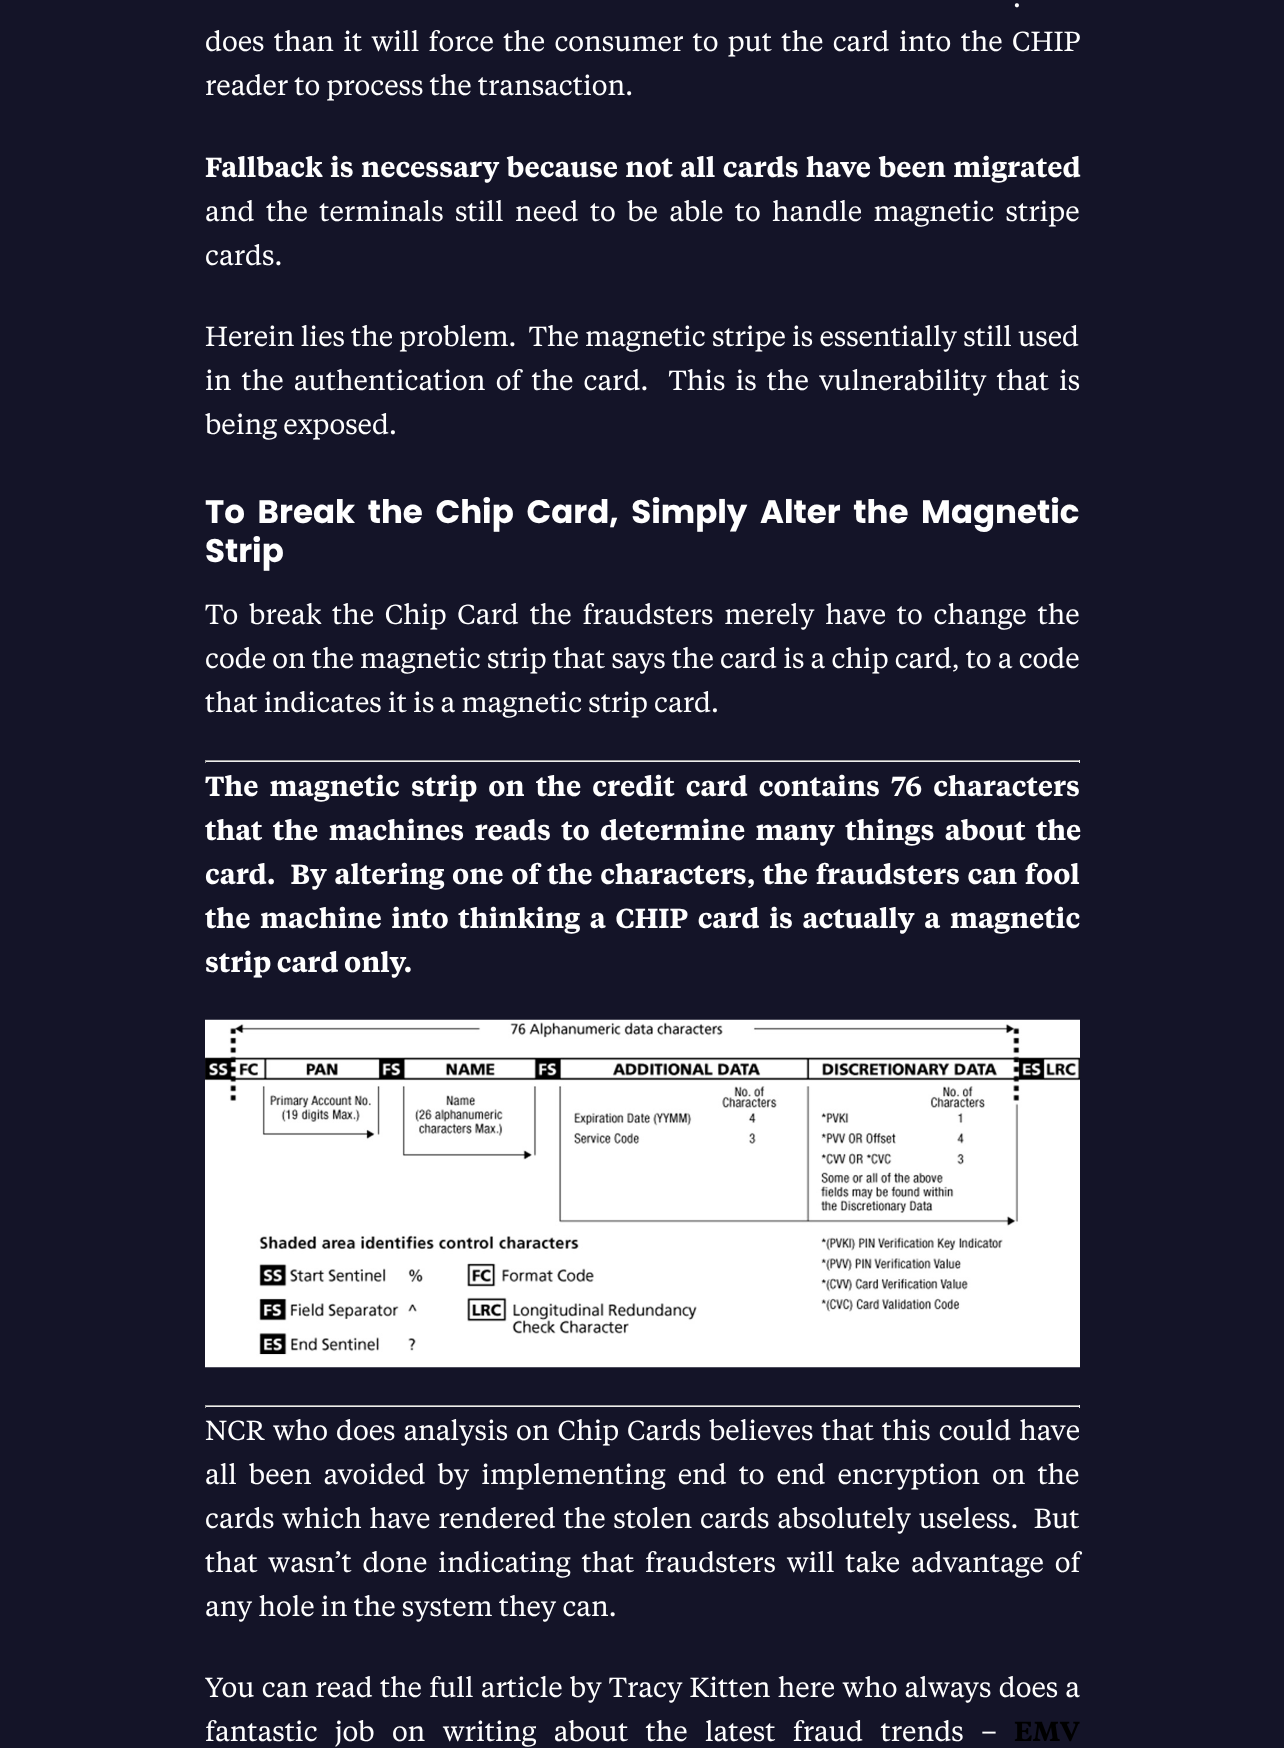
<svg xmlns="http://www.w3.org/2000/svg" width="1284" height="1748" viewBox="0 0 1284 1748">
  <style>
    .t1 { font: 27.5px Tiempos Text; fill: #fff; }
    .t2 { font: 600 27.5px Tiempos Text; fill: #fff; }
    .t3 { font: bold 32.5px Poppins; fill: #fff; }
    .t4 { font: 600 27.5px Tiempos Text; fill: #000; }
  </style>
  <rect width="100%" height="100%" fill="#141428"/>
  <text x="1013" y="7" class="t1">.</text>
  <text x="205" y="51" word-spacing="3.1" class="t1">does than it will force the consumer to put the card into the CHIP</text>
  <text x="205" y="95" class="t1">reader to process the transaction.</text>
  <text x="205" y="177" word-spacing="2" class="t2">Fallback is necessary because not all cards have been migrated</text>
  <text x="205" y="221" word-spacing="5.25" class="t1">and the terminals still need to be able to handle magnetic stripe</text>
  <text x="205" y="265" class="t1">cards.</text>
  <text x="205" y="346" class="t1" xml:space="preserve">Herein lies the problem.  The magnetic stripe is essentially still used</text>
  <text x="205" y="390" word-spacing="3.9" class="t1" xml:space="preserve">in the authentication of the card.  This is the vulnerability that is</text>
  <text x="205" y="434" class="t1">being exposed.</text>
  <text x="205" y="523" word-spacing="5.75" class="t3">To Break the Chip Card, Simply Alter the Magnetic</text>
  <text x="205" y="562" class="t3">Strip</text>
  <text x="205" y="624" word-spacing="4.6" class="t1">To break the Chip Card the fraudsters merely have to change the</text>
  <text x="205" y="668" class="t1">code on the magnetic strip that says the card is a chip card, to a code</text>
  <text x="205" y="712" class="t1">that indicates it is a magnetic strip card.</text>
  <rect x="205" y="760" width="875" height="1" fill="#9f9f9f"/>
  <rect x="1079" y="760" width="1" height="3" fill="#eee"/>
  <rect x="205" y="761" width="875" height="1" fill="#eee"/>
  <rect x="205" y="760" width="1" height="3" fill="#9f9f9f"/>
  <text x="205" y="796" word-spacing="5.75" class="t2">The magnetic strip on the credit card contains 76 characters</text>
  <text x="205" y="840" word-spacing="5" class="t2">that the machines reads to determine many things about the</text>
  <text x="205" y="884" word-spacing="2.25" class="t2" xml:space="preserve">card.  By altering one of the characters, the fraudsters can fool</text>
  <text x="205" y="928" word-spacing="4.25" class="t2">the machine into thinking a CHIP card is actually a magnetic</text>
  <text x="205" y="972" class="t2">strip card only.</text>
  <image x="205" y="1019" width="875" height="349" href="images/1.png"/>
  <rect x="205" y="1405" width="875" height="1" fill="#9f9f9f"/>
  <rect x="1079" y="1405" width="1" height="3" fill="#eee"/>
  <rect x="205" y="1406" width="875" height="1" fill="#eee"/>
  <rect x="205" y="1405" width="1" height="3" fill="#9f9f9f"/>
  <text x="205" y="1440" word-spacing="1.75" class="t1">NCR who does analysis on Chip Cards believes that this could have</text>
  <text x="205" y="1484" word-spacing="5.75" class="t1">all been avoided by implementing end to end encryption on the</text>
  <text x="205" y="1528" word-spacing="1.6" class="t1" xml:space="preserve">cards which have rendered the stolen cards absolutely useless.  But</text>
  <text x="205" y="1572" word-spacing="4.6" class="t1">that wasn’t done indicating that fraudsters will take advantage of</text>
  <text x="205" y="1616" class="t1">any hole in the system they can.</text>
  <text x="205" y="1697" word-spacing="1" class="t1">You can read the full article by Tracy Kitten here who always does a</text>
  <text x="205" y="1741" word-spacing="11.25" class="t1">fantastic job on writing about the latest fraud trends –</text>
  <text x="1014" y="1741" class="t4">EMV</text>
</svg>
